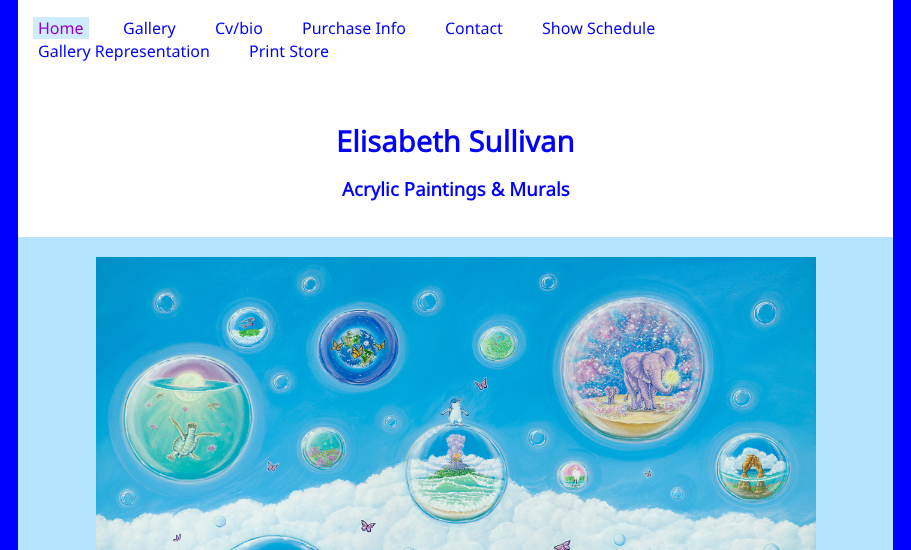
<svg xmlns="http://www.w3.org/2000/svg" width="911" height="550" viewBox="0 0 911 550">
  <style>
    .t1 { font: 16px Noto Sans; fill: #9400d3; }
    .t2 { font: 16px Noto Sans; fill: #00f; }
    .t3 { font: bold 29.25px Noto Sans; fill: #00f; }
    .t4 { font: bold 18.75px Noto Sans; fill: #00f; }
  </style>
  <rect width="100%" height="100%" fill="#00f"/>
  <rect x="18" y="0" width="875" height="237" fill="#fff"/>
  <rect x="33" y="17" width="56" height="22" fill="#cfecfd"/>
  <text x="38" y="34" class="t1">Home</text>
  <text x="123" y="34" class="t2">Gallery</text>
  <text x="215" y="34" class="t2">Cv/bio</text>
  <text x="302" y="34" class="t2">Purchase Info</text>
  <text x="445" y="34" class="t2">Contact</text>
  <text x="542" y="34" class="t2">Show Schedule</text>
  <text x="38" y="57" class="t2">Gallery Representation</text>
  <text x="249" y="57" class="t2">Print Store</text>
  <text x="336" y="152" class="t3">Elisabeth Sullivan</text>
  <text x="342" y="196" class="t4">Acrylic Paintings &amp; Murals</text>
  <rect x="18" y="237" width="875" height="313" fill="#b5e5fe"/>
  <image x="96" y="257" width="720" height="293" href="images/1.png"/>
</svg>
